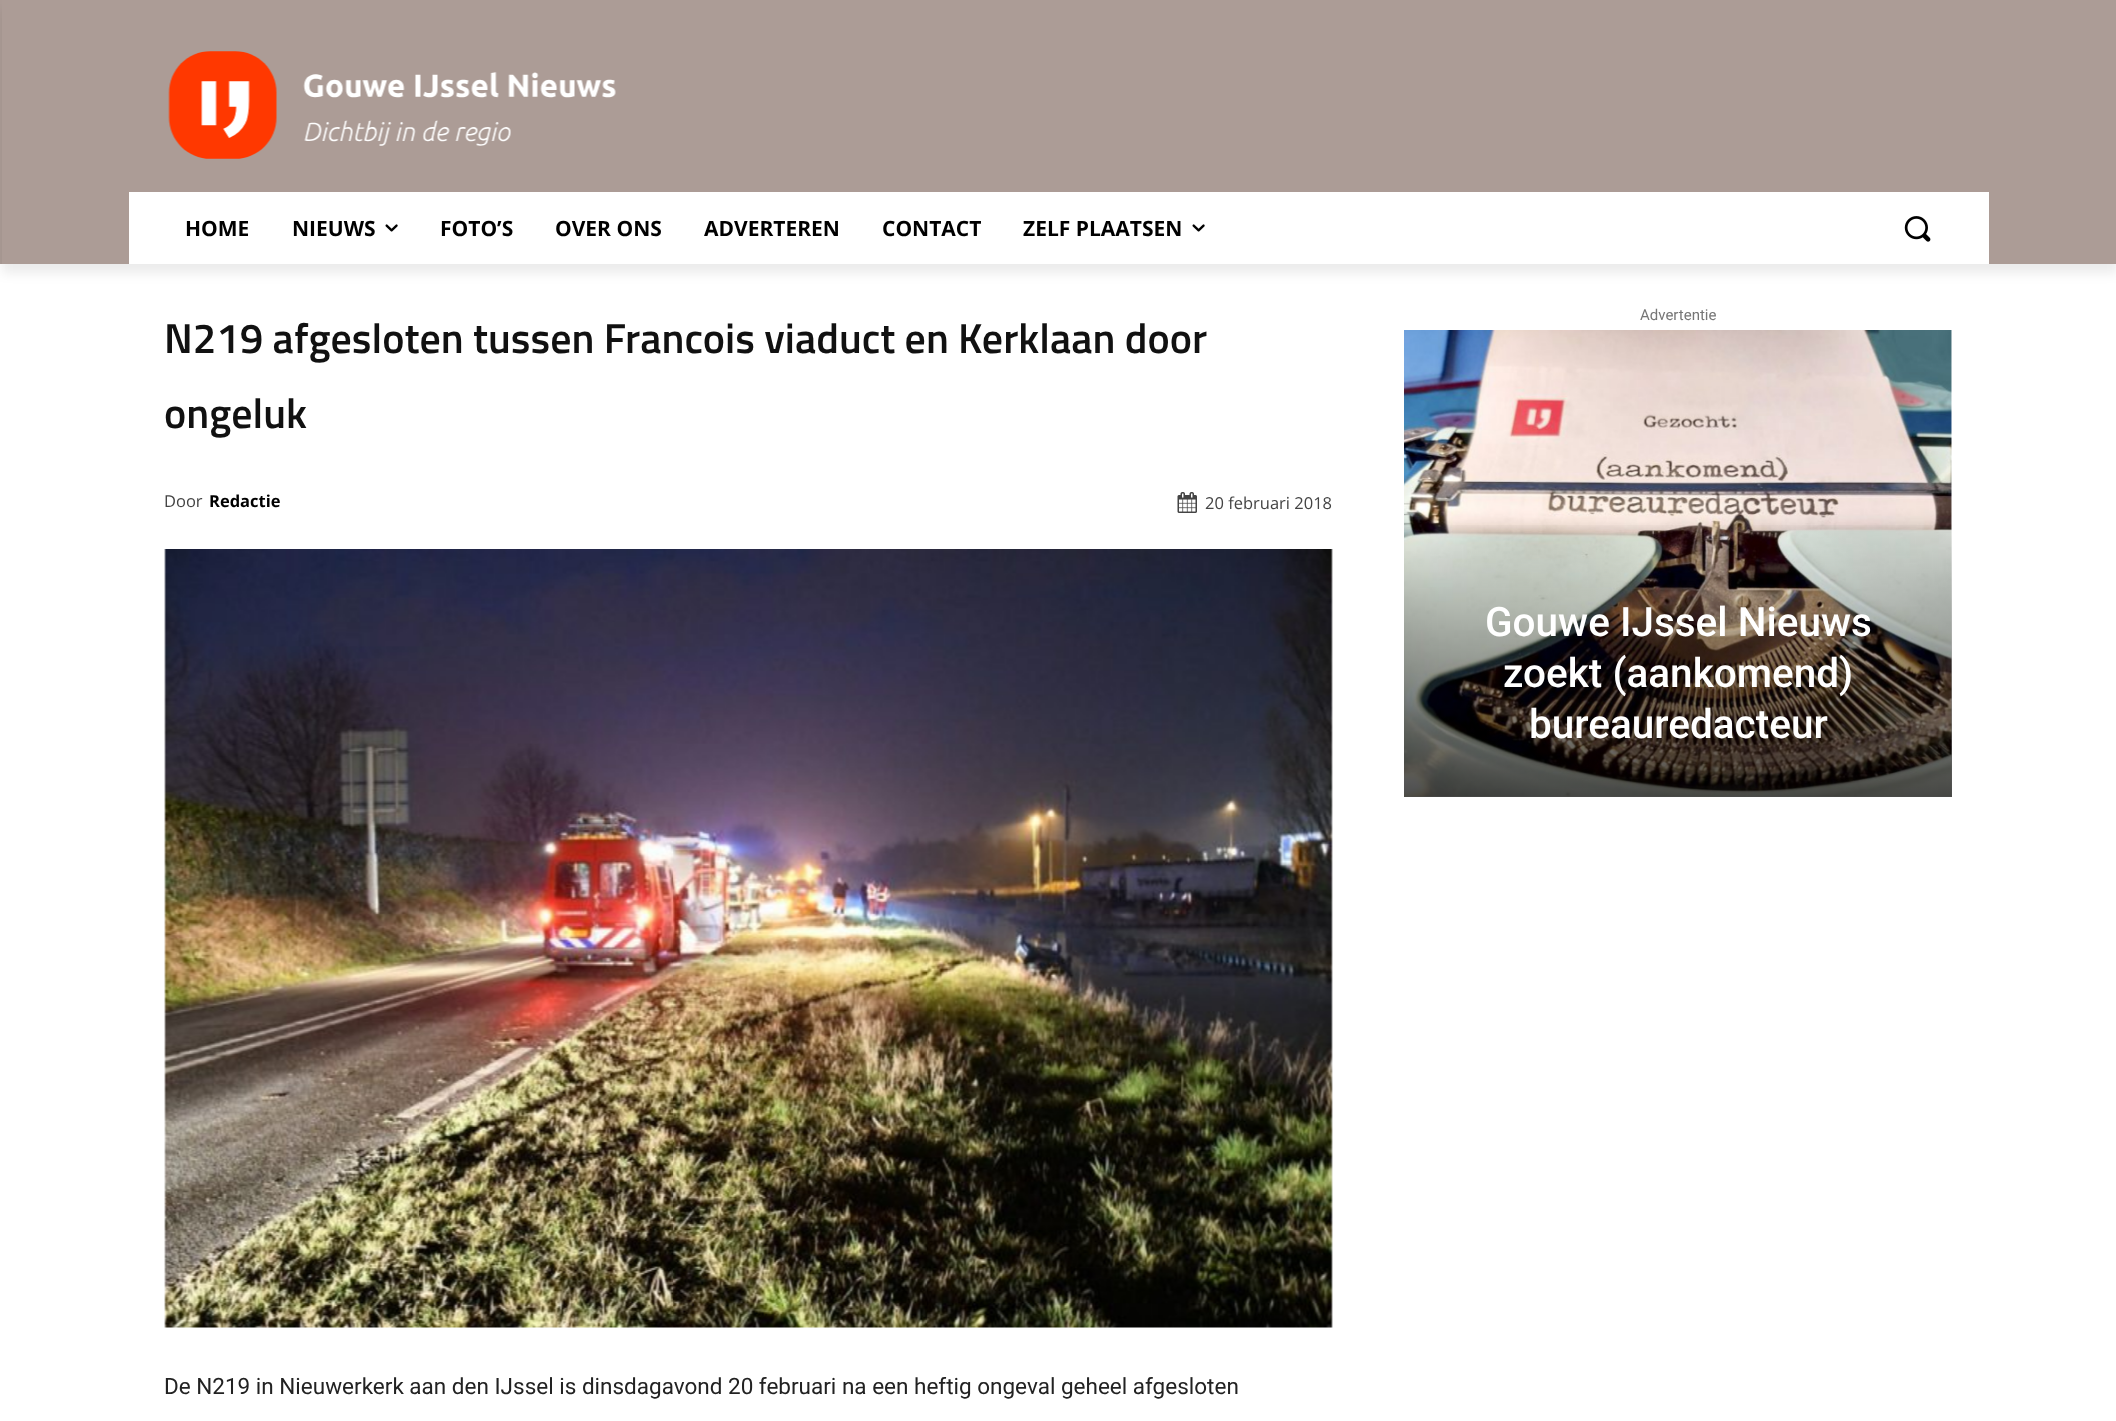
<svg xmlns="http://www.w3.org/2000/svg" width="2116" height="1421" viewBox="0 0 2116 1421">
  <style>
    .t1 { font: bold 21px Open Sans; fill: #000; }
    .t2 { font: 600 42px Titillium Web; fill: #111; }
    .t3 { font: 16.5px Open Sans; fill: #444; }
    .t4 { font: bold 16.5px Open Sans; fill: #000; }
    .t5 { font: 22.5px Roboto; fill: #222; }
    .t6 { font: 15px Roboto; fill: #767676; }
    .t7 { font: 500 40.5px Roboto; fill: #fff; }
  </style>
  <defs>
    <clipPath id="clip1"><path d="M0 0H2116V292H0ZM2 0H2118V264H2Z" clip-rule="evenodd"/></clipPath>
    <linearGradient id="g1" gradientUnits="userSpaceOnUse" x1="1678" y1="797" x2="1678" y2="330"><stop offset="0" stop-color="#000" stop-opacity="0.7"/><stop offset="0.6" stop-color="#000" stop-opacity="0"/><stop offset="1" stop-color="#000" stop-opacity="0"/></linearGradient>
  </defs>
  <rect width="100%" height="100%" fill="#fff"/>
  <rect x="0" y="0" width="2116" height="264" fill="#ac9c96"/>
  <image x="168" y="51" width="448" height="108" href="images/1.png"/>
  <rect x="129" y="192" width="1860" height="72" fill="#fff"/>
  <g clip-path="url(#clip1)">
    <rect x="2" y="9" width="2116" height="264" fill="#00000014" filter="blur(6px)"/>
  </g>
  <text x="185" y="236" class="t1">HOME</text>
  <text x="292" y="236" class="t1">NIEUWS</text>
  <image x="385" y="224" width="13" height="8" href="images/2.png"/>
  <text x="440" y="236" class="t1">FOTO’S</text>
  <text x="555" y="236" class="t1">OVER ONS</text>
  <text x="704" y="236" class="t1">ADVERTEREN</text>
  <text x="882" y="236" class="t1">CONTACT</text>
  <text x="1023" y="236" class="t1">ZELF PLAATSEN</text>
  <image x="1192" y="224" width="13" height="8" href="images/2.png"/>
  <image x="1904" y="216" width="27" height="26" href="images/3.png"/>
  <text x="164" y="353" class="t2">N219 afgesloten tussen Francois viaduct en Kerklaan door</text>
  <text x="164" y="428" class="t2">ongeluk</text>
  <text x="164" y="507" class="t3">Door</text>
  <text x="209" y="507" class="t4">Redactie</text>
  <image x="1177" y="492" width="20" height="21" href="images/4.png"/>
  <text x="1205" y="509" class="t3">20 februari 2018</text>
  <image x="164" y="549" width="1169" height="779" href="images/5.png"/>
  <text x="164" y="1394" class="t5">De N219 in Nieuwerkerk aan den IJssel is dinsdagavond 20 februari na een heftig ongeval geheel afgesloten</text>
  <text x="1640" y="320" class="t6">Advertentie</text>
  <image x="1404" y="330" width="548" height="467" href="images/6.png"/>
  <rect x="1404" y="525" width="548" height="272" fill="url(#g1)"/>
  <text x="1485" y="636" class="t7">Gouwe IJssel Nieuws</text>
  <text x="1503" y="687" class="t7">zoekt (aankomend)</text>
  <text x="1529" y="738" class="t7">bureauredacteur</text>
</svg>
